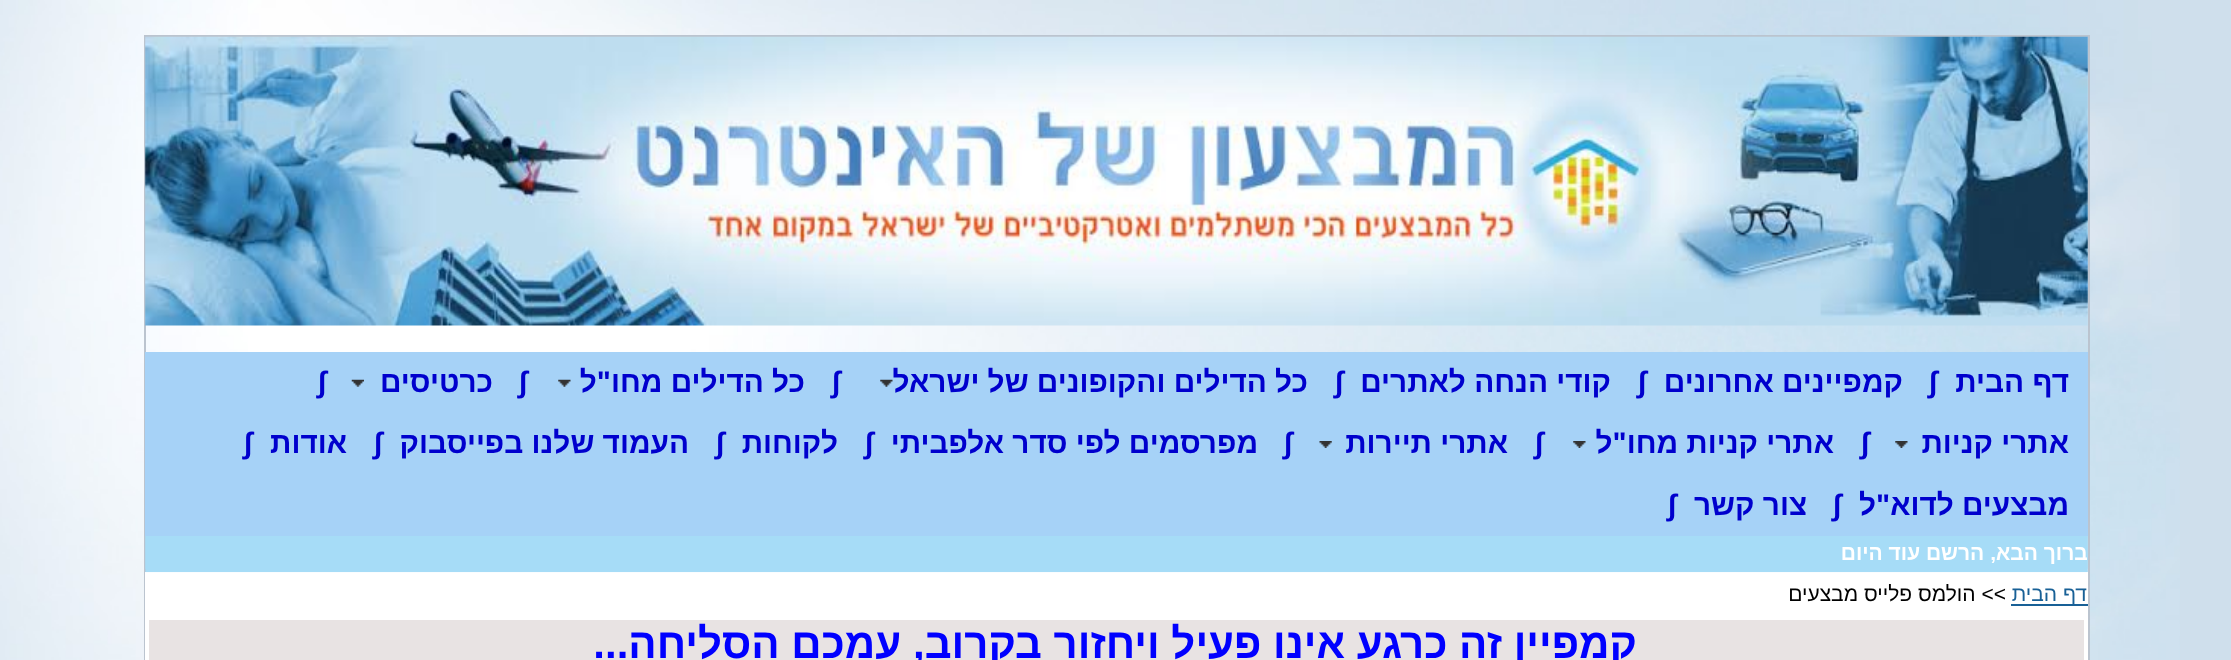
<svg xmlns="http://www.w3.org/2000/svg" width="2231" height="660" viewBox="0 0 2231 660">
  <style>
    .t1 { font: bold 29.75px Liberation Sans; direction: rtl; fill: #0000cd; }
    .t2 { font: bold 29.75px Liberation Sans; fill: #0000cd; }
    .t3 { font: 21px Liberation Sans; direction: rtl; fill: #186096; }
    .t4 { font: 21px Liberation Sans; direction: rtl; fill: #000; }
    .t5 { font: bold 42px Liberation Sans; direction: rtl; fill: #00f; }
  </style>
  <rect width="100%" height="100%" fill="#cfdfec"/>
  <image x="0" y="0" width="2180" height="660" href="images/1.png"/>
  <rect x="145" y="36" width="1944" height="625" fill="none" stroke="#bbc4cf" stroke-width="2"/>
  <image x="145" y="36" width="1943" height="290" href="images/2.png"/>
  <rect x="145" y="352" width="1943" height="184" fill="#a6d2f7"/>
  <text x="2069" y="392" class="t1">דף הבית</text>
  <text x="1929" y="392" class="t2">∫</text>
  <text x="1903" y="392" class="t1">קמפיינים אחרונים</text>
  <text x="1638" y="392" class="t2">∫</text>
  <text x="1611" y="392" class="t1">קודי הנחה לאתרים</text>
  <text x="1335" y="392" class="t2">∫</text>
  <image x="880" y="379" width="13" height="8" href="images/3.png"/>
  <text x="1308" y="392" class="t1">כל הדילים והקופונים של ישראל</text>
  <text x="832" y="392" class="t2">∫</text>
  <image x="558" y="379" width="13" height="8" href="images/3.png"/>
  <text x="805" y="392" class="t1">כל הדילים מחו"ל</text>
  <text x="519" y="392" class="t2">∫</text>
  <image x="351" y="379" width="13" height="8" href="images/4.png"/>
  <text x="493" y="392" class="t1">כרטיסים</text>
  <text x="318" y="392" class="t2">∫</text>
  <image x="1895" y="441" width="13" height="7" href="images/5.png"/>
  <text x="2069" y="453" class="t1">אתרי קניות</text>
  <text x="1861" y="453" class="t2">∫</text>
  <image x="1573" y="441" width="13" height="7" href="images/6.png"/>
  <text x="1834" y="453" class="t1">אתרי קניות מחו"ל</text>
  <text x="1535" y="453" class="t2">∫</text>
  <image x="1319" y="441" width="13" height="7" href="images/7.png"/>
  <text x="1508" y="453" class="t1">אתרי תיירות</text>
  <text x="1284" y="453" class="t2">∫</text>
  <text x="1258" y="453" class="t1">מפרסמים לפי סדר אלפביתי</text>
  <text x="865" y="453" class="t2">∫</text>
  <text x="838" y="453" class="t1">לקוחות</text>
  <text x="716" y="453" class="t2">∫</text>
  <text x="689" y="453" class="t1">העמוד שלנו בפייסבוק</text>
  <text x="374" y="453" class="t2">∫</text>
  <text x="347" y="453" class="t1">אודות</text>
  <text x="244" y="453" class="t2">∫</text>
  <text x="2069" y="515" class="t1">מבצעים לדוא"ל</text>
  <text x="1833" y="515" class="t2">∫</text>
  <text x="1807" y="515" class="t1">צור קשר</text>
  <text x="1668" y="515" class="t2">∫</text>
  <rect x="145" y="572" width="1943" height="88" fill="#fff"/>
  <image x="145" y="536" width="1943" height="37" href="images/8.png"/>
  <rect x="2011" y="604" width="77" height="2" fill="#186096"/>
  <text x="2087" y="601" class="t3">דף הבית</text>
  <text x="2006" y="601" class="t4">&gt;&gt; הולמס פלייס מבצעים</text>
  <rect x="149" y="620" width="1935" height="40" fill="#e8e3e3"/>
  <text x="1637" y="658" class="t5">קמפיין זה כרגע אינו פעיל ויחזור בקרוב, עמכם הסליחה...</text>
</svg>
